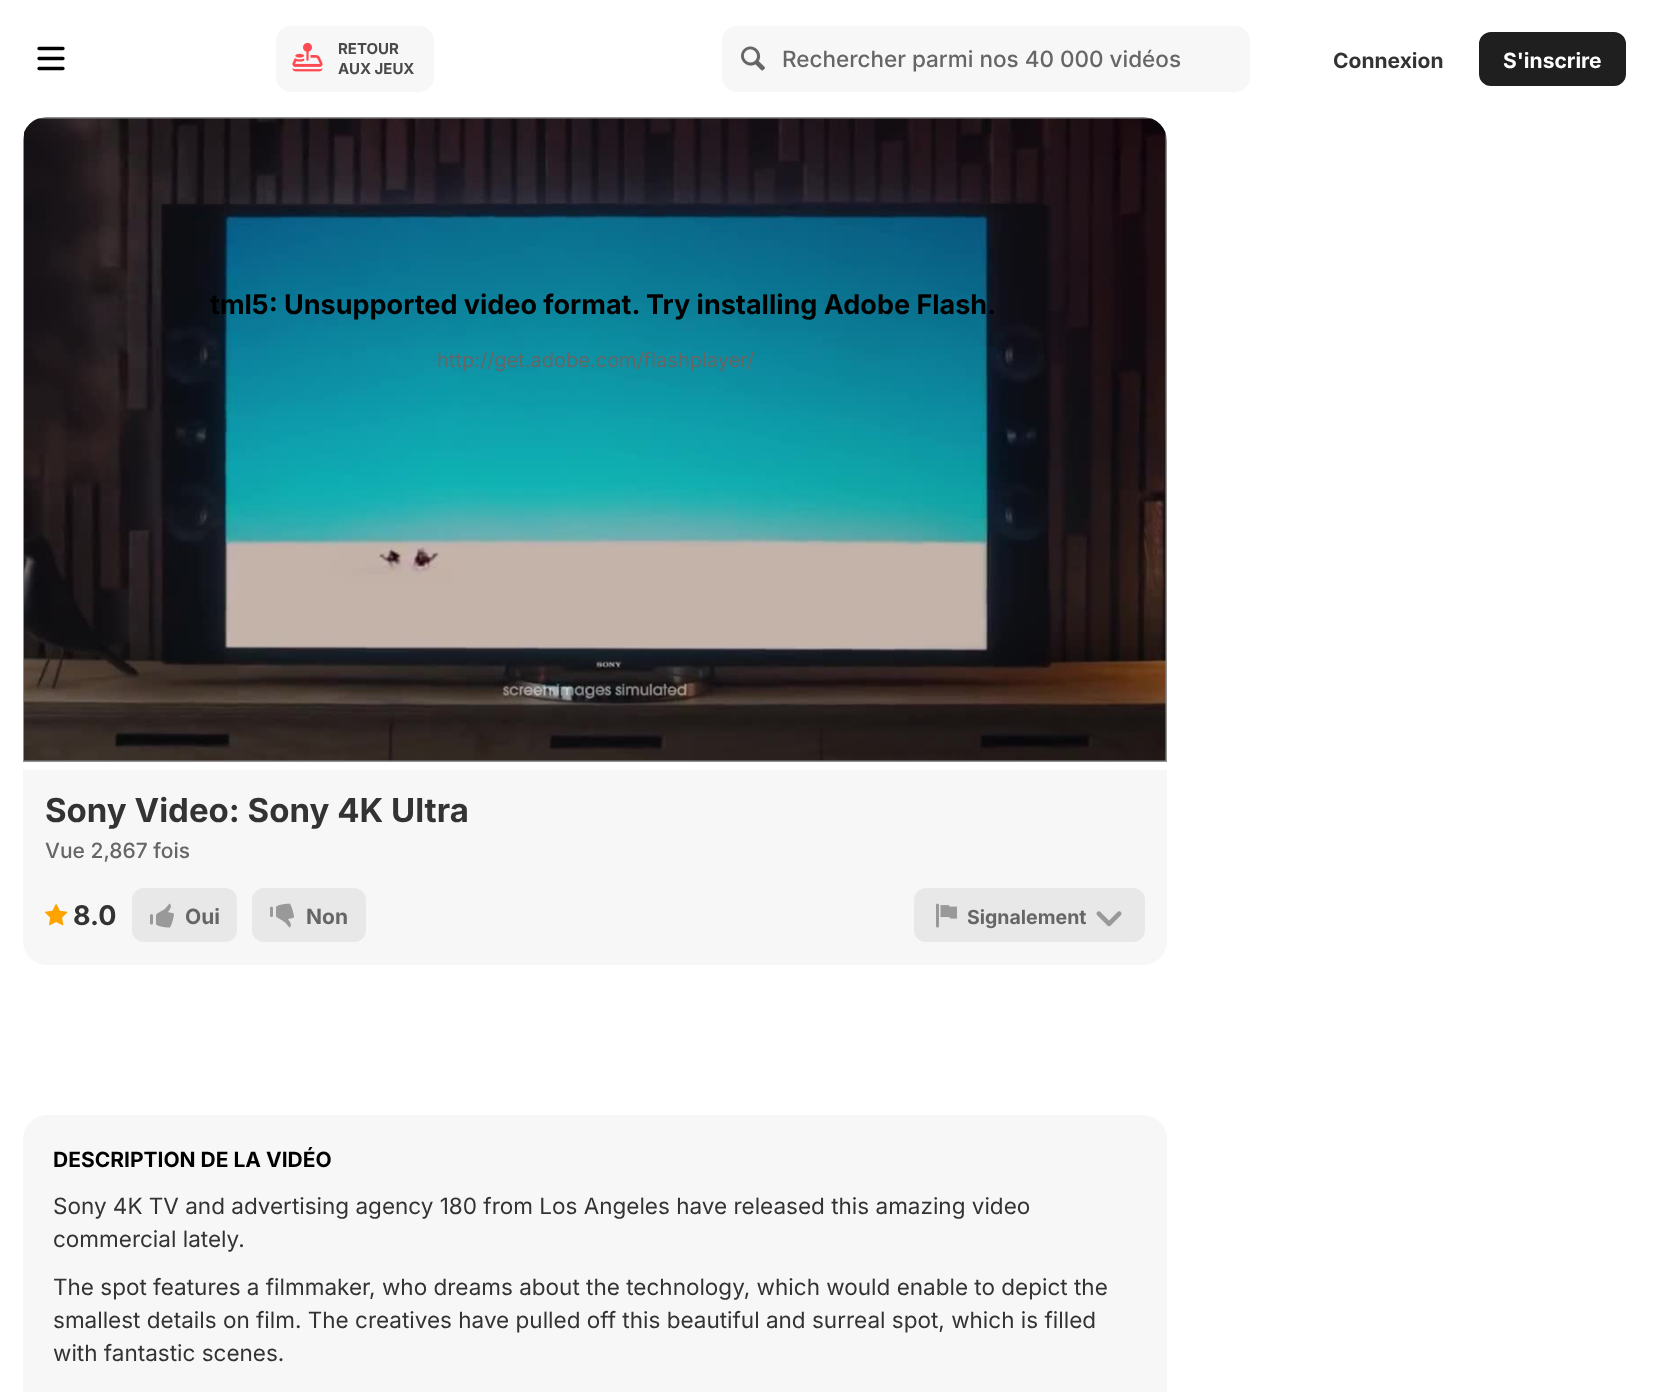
<svg xmlns="http://www.w3.org/2000/svg" width="1662" height="1392" viewBox="0 0 1662 1392">
  <style>
    .t1 { font: bold 15px Inter; fill: #4a4a4a; }
    .t2 { font: 500 22.5px Inter; fill: #666; }
    .t3 { font: bold 21px Inter; fill: #333; }
    .t4 { font: bold 21px Inter; fill: #fff; }
    .t5 { font: bold 27px Inter; fill: #000; }
    .t6 { font: 20px Inter; fill: #666; }
    .t7 { font: bold 33px Inter; fill: #333; }
    .t8 { font: 500 21px Inter; fill: #666; }
    .t9 { font: bold 27px Inter; fill: #333; }
    .t10 { font: bold 21px Inter; fill: #666; }
    .t11 { font: bold 19.5px Inter; fill: #666; }
    .t12 { font: bold 21px Inter; fill: #000; }
    .t13 { font: 22.5px Inter; fill: #333; }
  </style>
  <rect width="100%" height="100%" fill="#fff"/>
  <path d="M39 48.5H63M39 58.5H63M63 68.5H39" fill="none" stroke="#000" stroke-width="3.3" stroke-linecap="round"/>
  <rect x="276" y="26" width="158" height="66" rx="15" fill="#f7f7f7"/>
  <image x="292" y="42" width="31" height="30" href="images/1.png"/>
  <text x="338" y="54" class="t1">RETOUR</text>
  <text x="338" y="74" class="t1">AUX JEUX</text>
  <rect x="722" y="26" width="528" height="66" rx="15" fill="#f7f7f7"/>
  <image x="741" y="46" width="24" height="25" href="images/2.png"/>
  <text x="782" y="67" class="t2">Rechercher parmi nos 40 000 vidéos</text>
  <text x="1333" y="68" class="t3">Connexion</text>
  <rect x="1480" y="33" width="145" height="52" rx="11" fill="#1f1f1f" stroke="#1f1f1f" stroke-width="2"/>
  <text x="1503" y="68" class="t4">S'inscrire</text>
  <path d="M23 141V762H1167V141C1167 138 1166 134 1165 131V760H25V131C24 134 23 138 23 141ZM47 117C44 117 40 118 37 119H1153C1150 118 1146 117 1143 117Z" fill="#909090" fill-rule="evenodd"/>
  <image x="24" y="118" width="1142" height="643" href="images/3.png"/>
  <text x="210" y="314" class="t5">tml5: Unsupported video format. Try installing Adobe Flash.</text>
  <text x="437" y="367" class="t6">http://get.adobe.com/flashplayer/</text>
  <path d="M23 770H1167V941C1167 954.5 1156.5 965 1143 965H47C33.5 965 23 954.5 23 941Z" fill="#f7f7f7"/>
  <text x="45" y="822" class="t7">Sony Video: Sony 4K Ultra</text>
  <text x="45" y="858" class="t8">Vue 2,867 fois</text>
  <image x="45" y="904" width="23" height="22" href="images/4.png"/>
  <text x="73" y="925" class="t9">8.0</text>
  <rect x="132" y="888" width="105" height="54" rx="12" fill="#e8e8e8"/>
  <image x="150" y="903" width="24" height="25" href="images/5.png"/>
  <text x="185" y="924" class="t10">Oui</text>
  <rect x="252" y="888" width="114" height="54" rx="12" fill="#e8e8e8"/>
  <image x="270" y="903" width="24" height="25" href="images/6.png"/>
  <text x="306" y="924" class="t10">Non</text>
  <rect x="914" y="888" width="231" height="54" rx="12" fill="#e8e8e8"/>
  <image x="936" y="903" width="21" height="25" href="images/7.png"/>
  <text x="967" y="924" class="t11">Signalement</text>
  <image x="1096" y="911" width="26" height="16" href="images/8.png"/>
  <rect x="23" y="1115" width="1144" height="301" rx="24" fill="#f7f7f7"/>
  <text x="53" y="1167" class="t12">DESCRIPTION DE LA VIDÉO</text>
  <text x="53" y="1214" class="t13">Sony 4K TV and advertising agency 180 from Los Angeles have released this amazing video</text>
  <text x="53" y="1247" class="t13">commercial lately.</text>
  <text x="53" y="1295" class="t13">The spot features a filmmaker, who dreams about the technology, which would enable to depict the</text>
  <text x="53" y="1328" class="t13">smallest details on film. The creatives have pulled off this beautiful and surreal spot, which is filled</text>
  <text x="53" y="1361" class="t13">with fantastic scenes.</text>
</svg>
